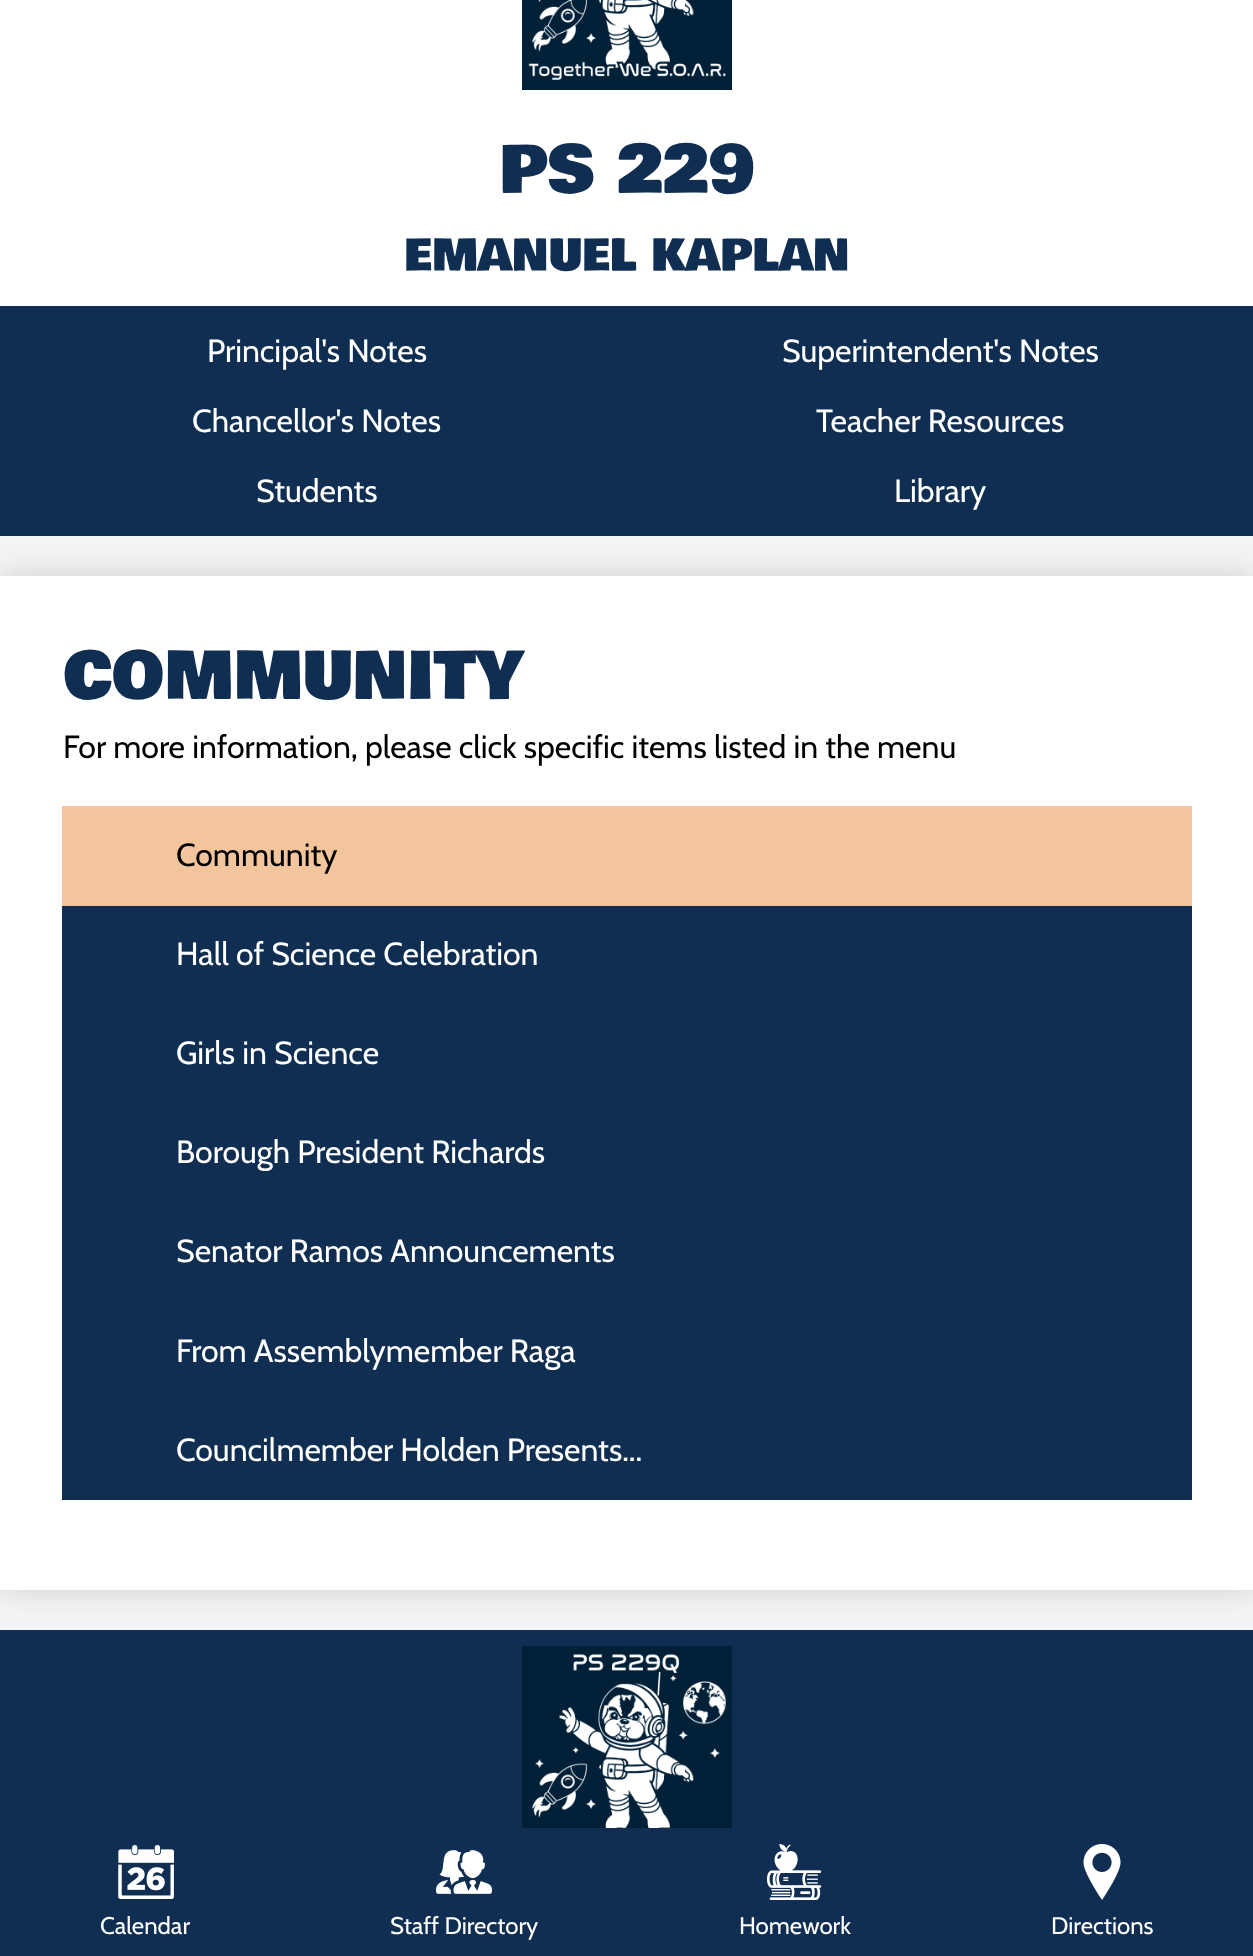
<svg xmlns="http://www.w3.org/2000/svg" width="1253" height="1956" viewBox="0 0 1253 1956">
  <style>
    .t1 { font: 64.5px Bowlby One; fill: #102e52; }
    .t2 { font: 43px Bowlby One; fill: #102e52; }
    .t3 { font: 32px Cabin; fill: #fff; }
    .t4 { font: 32px Cabin; fill: #000; }
    .t5 { font: 24px Cabin; fill: #fff; }
  </style>
  <rect width="100%" height="100%" fill="#f4f4f4"/>
  <rect x="0" y="0" width="1253" height="306" fill="#fff"/>
  <image x="522" y="0" width="210" height="90" href="images/1.png"/>
  <text x="499" y="192" class="t1">PS 229</text>
  <text x="404" y="270" class="t2">EMANUEL KAPLAN</text>
  <rect x="0" y="1630" width="1253" height="326" fill="#102e52"/>
  <rect x="0" y="576" width="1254" height="1014" fill="#00000026" filter="blur(15px)"/>
  <rect x="0" y="306" width="1253" height="230" fill="#102e52"/>
  <text x="207" y="362" class="t3">Principal's Notes</text>
  <text x="782" y="362" class="t3">Superintendent's Notes</text>
  <text x="192" y="432" class="t3">Chancellor's Notes</text>
  <text x="816" y="432" class="t3">Teacher Resources</text>
  <text x="256" y="502" class="t3">Students</text>
  <text x="894" y="502" class="t3">Library</text>
  <rect x="0" y="576" width="1253" height="1014" fill="#fff"/>
  <text x="63" y="698" class="t1">COMMUNITY</text>
  <text x="63" y="758" class="t4">For more information, please click specific items listed in the menu</text>
  <rect x="62" y="906" width="1130" height="594" fill="#102e52"/>
  <rect x="62" y="806" width="1130" height="100" fill="#f2c59d"/>
  <text x="176" y="866" class="t4">Community</text>
  <text x="176" y="965" class="t3">Hall of Science Celebration</text>
  <text x="176" y="1064" class="t3">Girls in Science</text>
  <text x="176" y="1163" class="t3">Borough President Richards</text>
  <text x="176" y="1262" class="t3">Senator Ramos Announcements</text>
  <text x="176" y="1362" class="t3">From Assemblymember Raga</text>
  <text x="176" y="1461" class="t3">Councilmember Holden Presents...</text>
  <image x="522" y="1646" width="210" height="182" href="images/2.png"/>
  <image x="118" y="1845" width="56" height="54" href="images/3.png"/>
  <text x="100" y="1934" class="t5">Calendar</text>
  <image x="436" y="1850" width="56" height="44" href="images/4.png"/>
  <text x="390" y="1934" class="t5">Staff Directory</text>
  <image x="766" y="1844" width="56" height="56" href="images/5.png"/>
  <text x="739" y="1934" class="t5">Homework</text>
  <image x="1083" y="1844" width="38" height="56" href="images/6.png"/>
  <text x="1051" y="1934" class="t5">Directions</text>
</svg>
